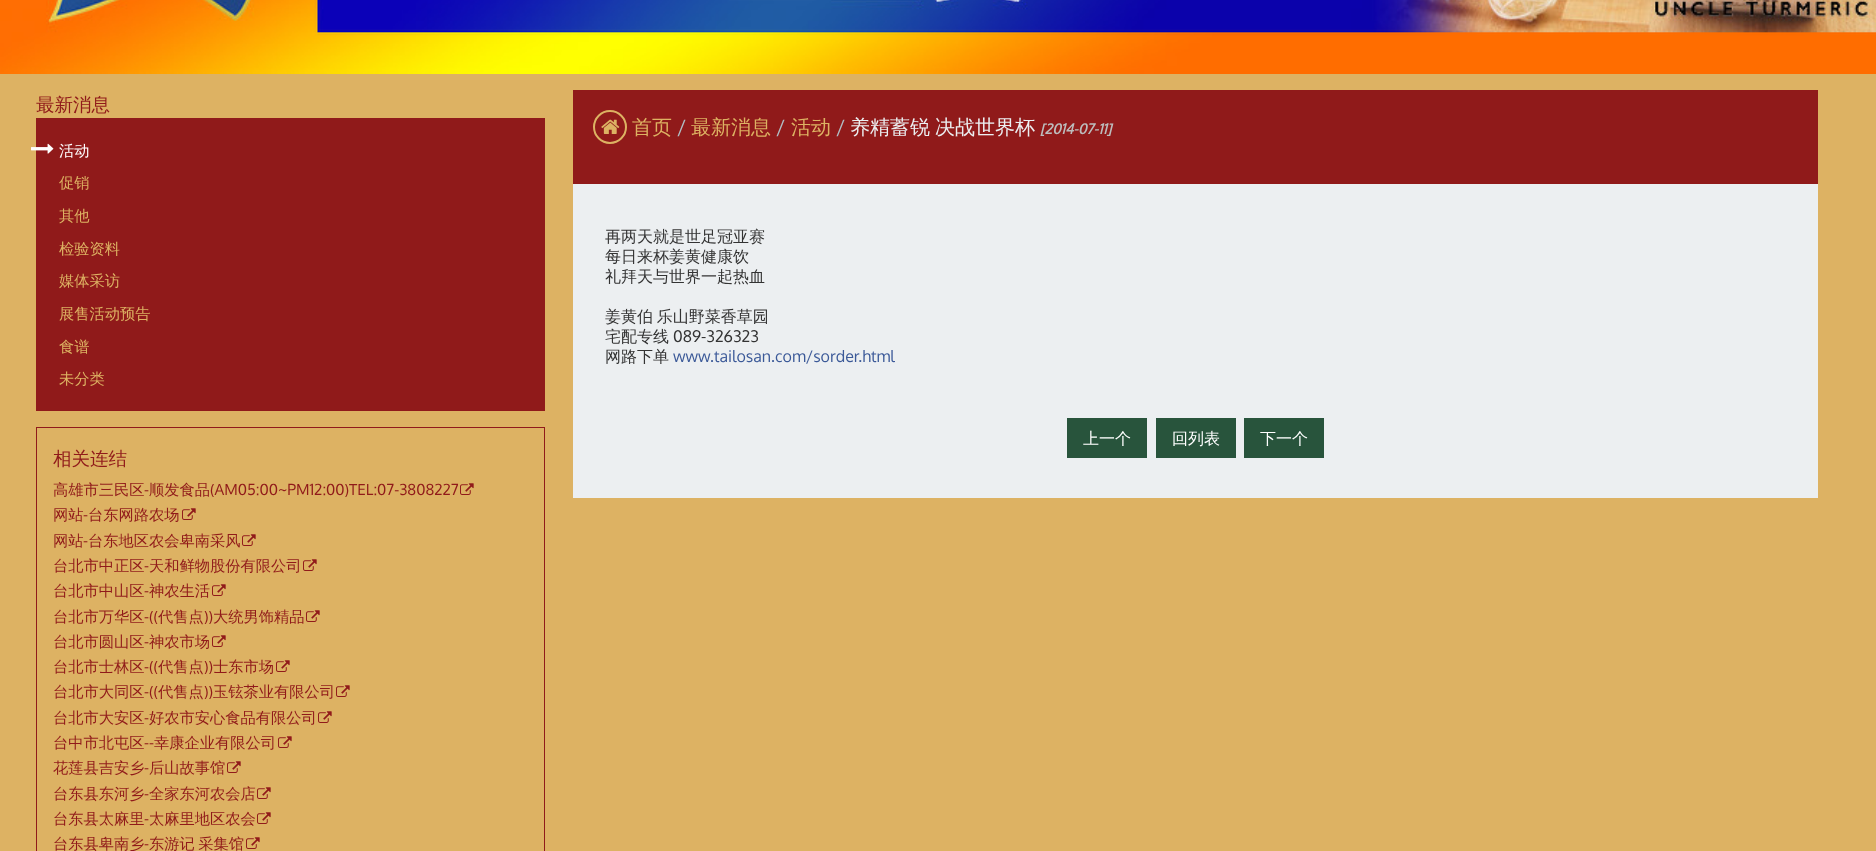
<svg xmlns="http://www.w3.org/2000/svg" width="1876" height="851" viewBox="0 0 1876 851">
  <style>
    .t1 { font: 500 18.5px WenQuanYi Zen Hei; fill: #901a1a; }
    .t2 { font: 500 15.25px WenQuanYi Zen Hei; fill: #fff; }
    .t3 { font: 500 15.25px WenQuanYi Zen Hei; fill: #ddb263; }
    .t4 { font: 500 15.25px WenQuanYi Zen Hei; fill: #901a1a; }
    .t5 { font: 15.25px Oxygen; fill: #901a1a; }
    .t6 { font: 500 20px WenQuanYi Zen Hei; fill: #ddb263; }
    .t7 { font: 20px Oxygen; fill: #b0bec5; }
    .t8 { font: 500 20px WenQuanYi Zen Hei; fill: #eceff1; }
    .t9 { font: italic bold 14px Oxygen; fill: #bdbdbd; }
    .t10 { font: 500 16px WenQuanYi Zen Hei; fill: #333; }
    .t11 { font: 16px Oxygen; fill: #333; }
    .t12 { font: 16px Oxygen; fill: #3b5998; }
    .t13 { font: 500 16px WenQuanYi Zen Hei; fill: #fff; }
  </style>
  <rect width="100%" height="100%" fill="#ddb263"/>
  <image x="0" y="0" width="1876" height="74" href="images/1.png"/>
  <text x="36" y="111" class="t1">最新消息</text>
  <rect x="36" y="118" width="509" height="293" fill="#901a1a"/>
  <image x="31" y="143" width="23" height="11" href="images/2.png"/>
  <text x="59" y="156" class="t2">活动</text>
  <text x="59" y="188" class="t3">促销</text>
  <text x="59" y="221" class="t3">其他</text>
  <text x="59" y="254" class="t3">检验资料</text>
  <text x="59" y="286" class="t3">媒体采访</text>
  <text x="59" y="319" class="t3">展售活动预告</text>
  <text x="59" y="352" class="t3">食谱</text>
  <text x="59" y="384" class="t3">未分类</text>
  <rect x="36.5" y="427.5" width="508" height="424" fill="none" stroke="#901a1a"/>
  <text x="53" y="465" class="t1">相关连结</text>
  <text x="53" y="495" class="t4">高雄市三民区</text>
  <text x="144" y="495" class="t5">-</text>
  <text x="149" y="495" class="t4">顺发食品</text>
  <text x="210" y="495" class="t5">(AM05:00~PM12:00)TEL:07-3808227</text>
  <image x="460" y="483" width="14" height="12" href="images/3.png"/>
  <text x="53" y="520" class="t4">网站</text>
  <text x="83" y="520" class="t5">-</text>
  <text x="88" y="520" class="t4">台东网路农场</text>
  <image x="182" y="508" width="14" height="12" href="images/3.png"/>
  <text x="53" y="546" class="t4">网站</text>
  <text x="83" y="546" class="t5">-</text>
  <text x="88" y="546" class="t4">台东地区农会卑南采风</text>
  <image x="242" y="534" width="14" height="12" href="images/3.png"/>
  <text x="53" y="571" class="t4">台北市中正区</text>
  <text x="144" y="571" class="t5">-</text>
  <text x="149" y="571" class="t4">天和鲜物股份有限公司</text>
  <image x="303" y="559" width="14" height="12" href="images/3.png"/>
  <text x="53" y="596" class="t4">台北市中山区</text>
  <text x="144" y="596" class="t5">-</text>
  <text x="149" y="596" class="t4">神农生活</text>
  <image x="212" y="584" width="14" height="12" href="images/3.png"/>
  <text x="53" y="622" class="t4">台北市万华区</text>
  <text x="144" y="622" class="t5">-((</text>
  <text x="158" y="622" class="t4">代售点</text>
  <text x="204" y="622" class="t5">))</text>
  <text x="213" y="622" class="t4">大统男饰精品</text>
  <image x="306" y="610" width="14" height="12" href="images/3.png"/>
  <text x="53" y="647" class="t4">台北市圆山区</text>
  <text x="144" y="647" class="t5">-</text>
  <text x="149" y="647" class="t4">神农市场</text>
  <image x="212" y="635" width="14" height="12" href="images/3.png"/>
  <text x="53" y="672" class="t4">台北市士林区</text>
  <text x="144" y="672" class="t5">-((</text>
  <text x="158" y="672" class="t4">代售点</text>
  <text x="204" y="672" class="t5">))</text>
  <text x="213" y="672" class="t4">士东市场</text>
  <image x="276" y="660" width="14" height="12" href="images/3.png"/>
  <text x="53" y="697" class="t4">台北市大同区</text>
  <text x="144" y="697" class="t5">-((</text>
  <text x="158" y="697" class="t4">代售点</text>
  <text x="204" y="697" class="t5">))</text>
  <text x="213" y="697" class="t4">玉铉茶业有限公司</text>
  <image x="336" y="685" width="14" height="12" href="images/3.png"/>
  <text x="53" y="723" class="t4">台北市大安区</text>
  <text x="144" y="723" class="t5">-</text>
  <text x="149" y="723" class="t4">好农市安心食品有限公司</text>
  <image x="318" y="711" width="14" height="12" href="images/3.png"/>
  <text x="53" y="748" class="t4">台中市北屯区</text>
  <text x="144" y="748" class="t5">--</text>
  <text x="154" y="748" class="t4">幸康企业有限公司</text>
  <image x="278" y="736" width="14" height="12" href="images/3.png"/>
  <text x="53" y="773" class="t4">花莲县吉安乡</text>
  <text x="144" y="773" class="t5">-</text>
  <text x="149" y="773" class="t4">后山故事馆</text>
  <image x="227" y="761" width="14" height="12" href="images/3.png"/>
  <text x="53" y="799" class="t4">台东县东河乡</text>
  <text x="144" y="799" class="t5">-</text>
  <text x="149" y="799" class="t4">全家东河农会店</text>
  <image x="257" y="787" width="14" height="12" href="images/3.png"/>
  <text x="53" y="824" class="t4">台东县太麻里</text>
  <text x="144" y="824" class="t5">-</text>
  <text x="149" y="824" class="t4">太麻里地区农会</text>
  <image x="257" y="812" width="14" height="12" href="images/3.png"/>
  <text x="53" y="849" class="t4">台东县卑南乡</text>
  <text x="144" y="849" class="t5">-</text>
  <text x="149" y="849" word-spacing="-1" class="t4">东游记 采集馆</text>
  <image x="246" y="837" width="14" height="12" href="images/3.png"/>
  <rect x="573" y="90" width="1245" height="94" fill="#901a1a"/>
  <circle cx="610" cy="127" r="16" fill="none" stroke="#ddb263" stroke-width="2"/>
  <image x="601" y="119" width="19" height="15" href="images/4.png"/>
  <text x="632" y="134" class="t6">首页</text>
  <text x="677" y="134" class="t7">/</text>
  <text x="691" y="134" class="t6">最新消息</text>
  <text x="776" y="134" class="t7">/</text>
  <text x="791" y="134" class="t6">活动</text>
  <text x="836" y="134" class="t7">/</text>
  <text x="850" y="134" word-spacing="-1" class="t8">养精蓄锐 决战世界杯</text>
  <text x="1040" y="134" class="t9">[2014-07-11]</text>
  <rect x="573" y="184" width="1245" height="314" fill="#eceff1"/>
  <text x="605" y="242" class="t10">再两天就是世足冠亚赛</text>
  <text x="605" y="262" class="t10">每日来杯姜黄健康饮</text>
  <text x="605" y="282" class="t10">礼拜天与世界一起热血</text>
  <text x="605" y="322" word-spacing="-1" class="t10">姜黄伯 乐山野菜香草园</text>
  <text x="605" y="342" class="t10">宅配专线</text>
  <text x="673" y="342" class="t11">089-326323</text>
  <text x="605" y="362" class="t10">网路下单</text>
  <text x="673" y="362" class="t12">www.tailosan.com/sorder.html</text>
  <rect x="1067" y="418" width="80" height="40" fill="#28543c"/>
  <text x="1083" y="444" class="t13">上一个</text>
  <rect x="1156" y="418" width="80" height="40" fill="#28543c"/>
  <text x="1172" y="444" class="t13">回列表</text>
  <rect x="1244" y="418" width="80" height="40" fill="#28543c"/>
  <text x="1260" y="444" class="t13">下一个</text>
</svg>
